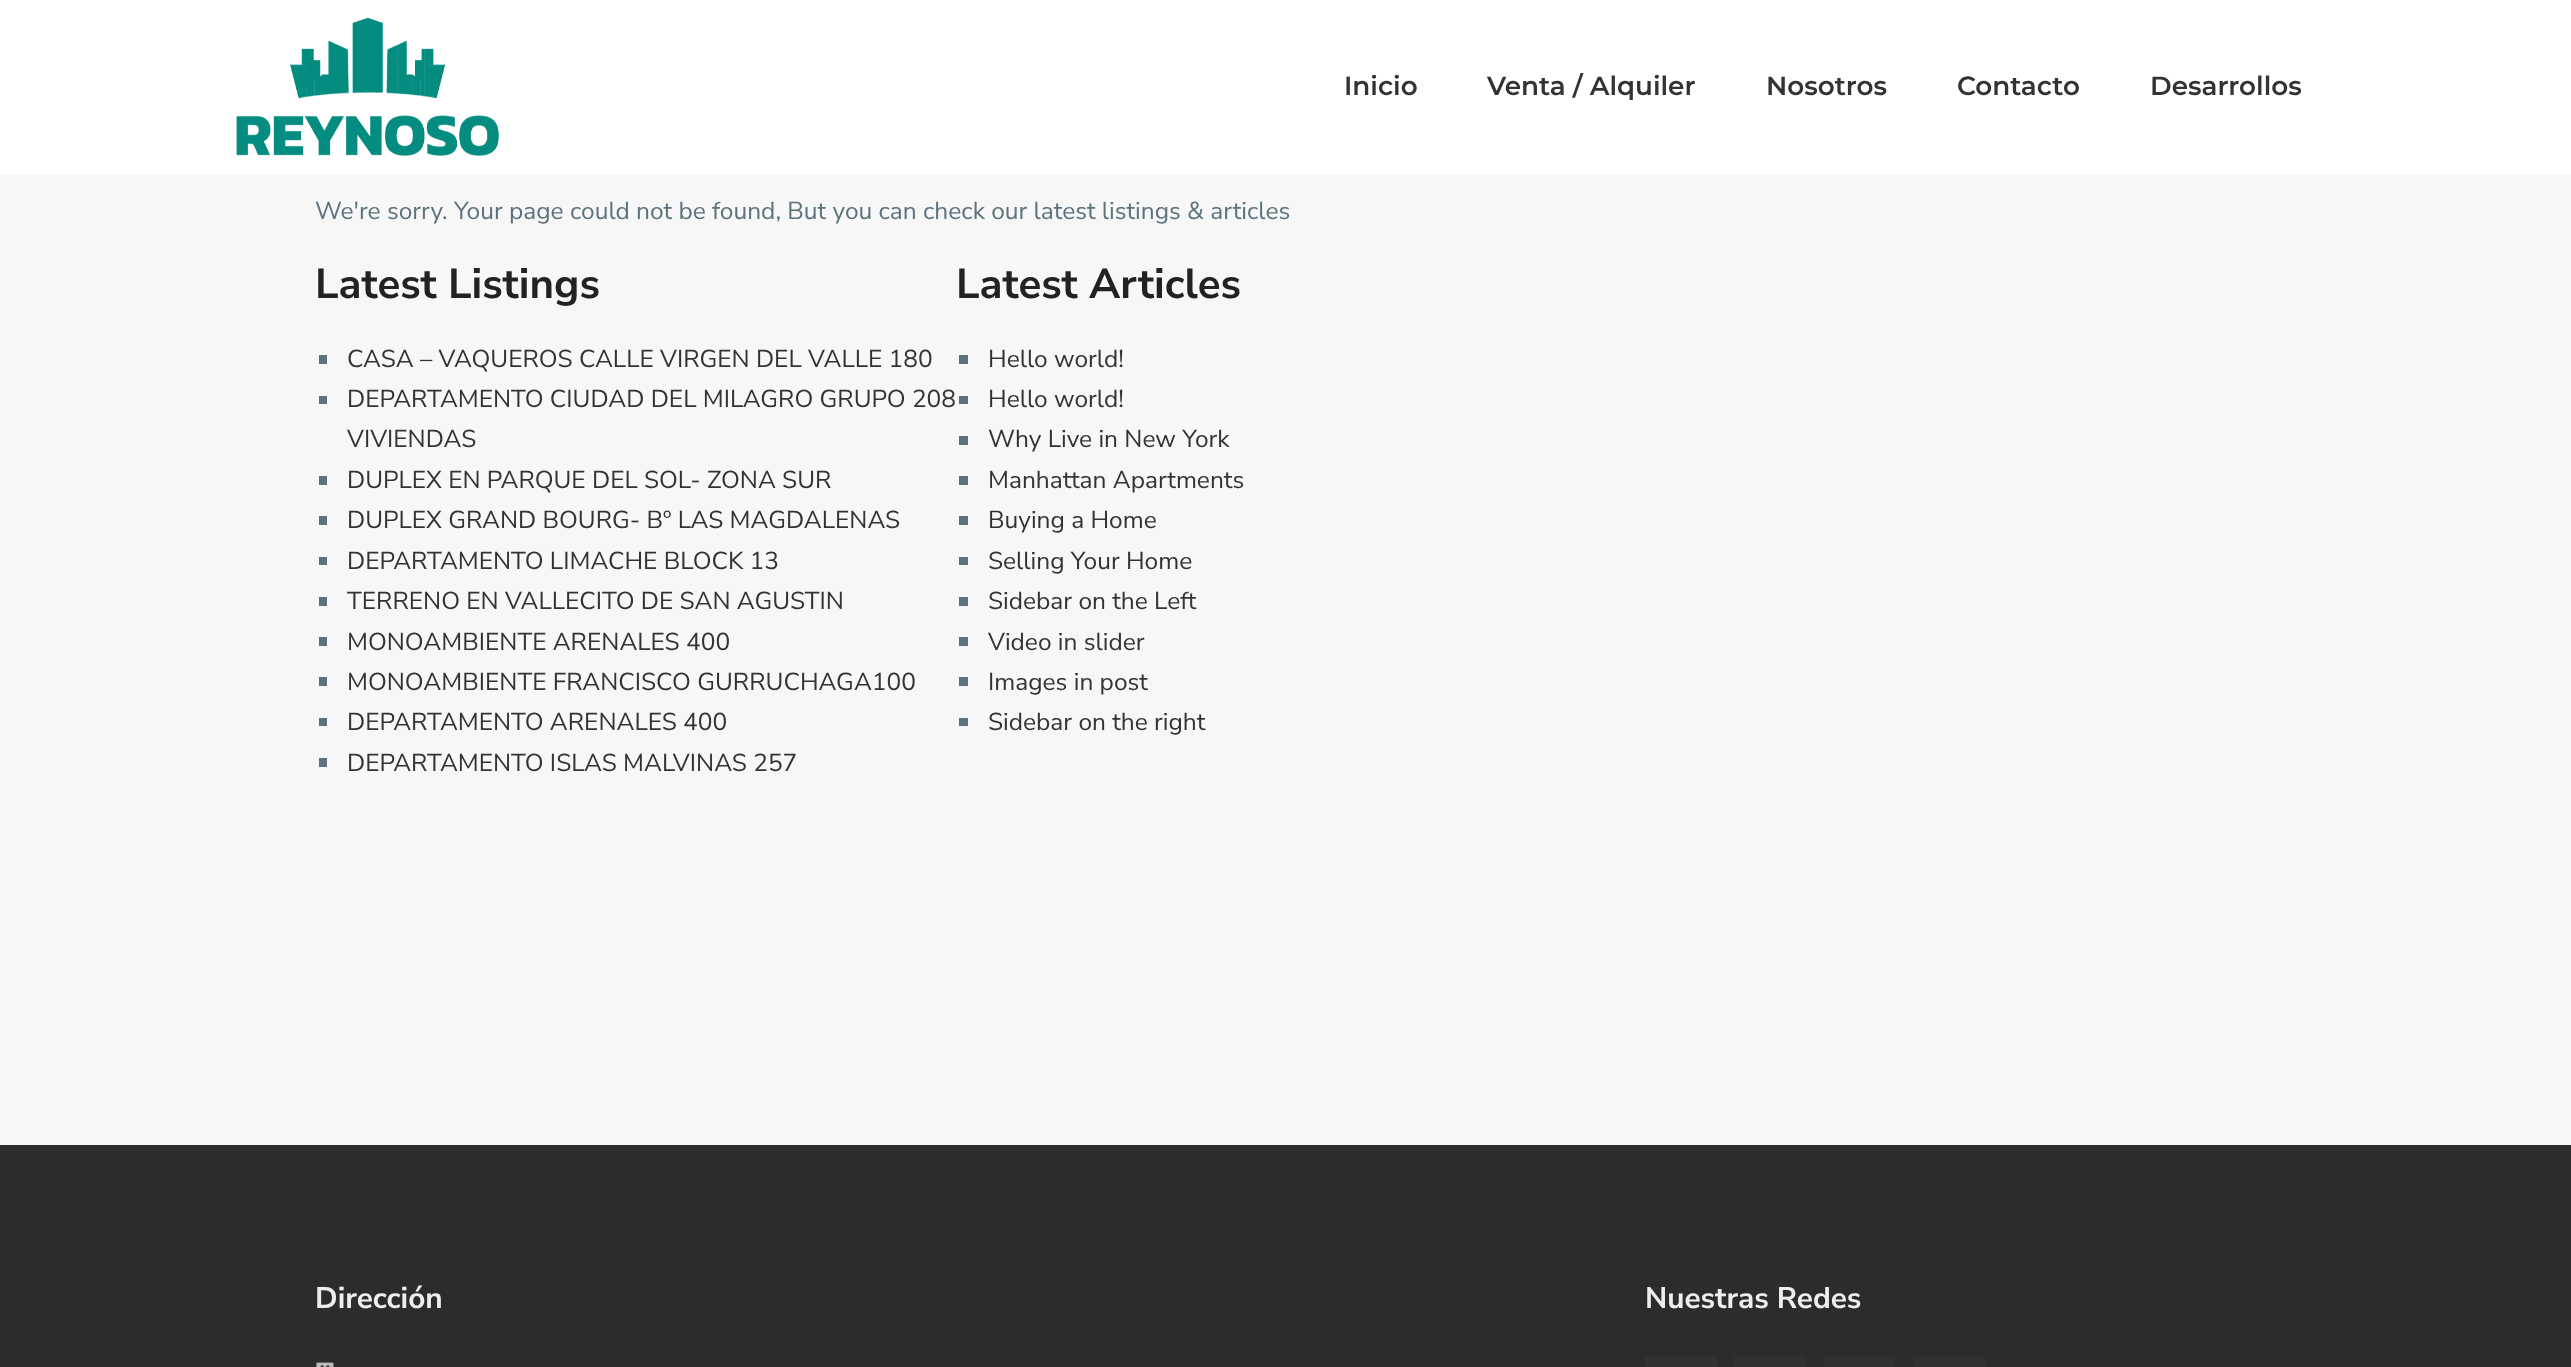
<svg xmlns="http://www.w3.org/2000/svg" width="2571" height="1367" viewBox="0 0 2571 1367">
  <style>
    .t1 { font: 600 26.25px Montserrat; fill: #333; }
    .t2 { font: 24.5px Nunito Sans; fill: #5c727d; }
    .t3 { font: bold 42px Nunito Sans; fill: #222; }
    .t4 { font: 24.5px Nunito Sans; fill: #333; }
    .t5 { font: bold 29.75px Nunito Sans; fill: #eee; }
  </style>
  <rect width="100%" height="100%" fill="#f7f7f7"/>
  <rect x="0" y="0" width="2571" height="175" fill="#fff"/>
  <image x="236" y="17" width="263" height="139" href="images/1.png"/>
  <text x="1344" y="95" class="t1">Inicio</text>
  <text x="1487" y="95" class="t1">Venta / Alquiler</text>
  <text x="1766" y="95" class="t1">Nosotros</text>
  <text x="1957" y="95" class="t1">Contacto</text>
  <text x="2150" y="95" class="t1">Desarrollos</text>
  <text x="315" y="219" class="t2">We're sorry. Your page could not be found, But you can check our latest listings &amp; articles</text>
  <text x="315" y="298" class="t3">Latest Listings</text>
  <rect x="319" y="355" width="8" height="9" fill="#5c727d"/>
  <text x="347" y="367" class="t4">CASA – VAQUEROS CALLE VIRGEN DEL VALLE 180</text>
  <rect x="319" y="396" width="8" height="8" fill="#5c727d"/>
  <text x="347" y="407" class="t4">DEPARTAMENTO CIUDAD DEL MILAGRO GRUPO 208</text>
  <text x="347" y="447" class="t4">VIVIENDAS</text>
  <rect x="319" y="476" width="8" height="9" fill="#5c727d"/>
  <text x="347" y="488" class="t4">DUPLEX EN PARQUE DEL SOL- ZONA SUR</text>
  <rect x="319" y="516" width="8" height="9" fill="#5c727d"/>
  <text x="347" y="528" class="t4">DUPLEX GRAND BOURG- Bº LAS MAGDALENAS</text>
  <rect x="319" y="557" width="8" height="8" fill="#5c727d"/>
  <text x="347" y="569" class="t4">DEPARTAMENTO LIMACHE BLOCK 13</text>
  <rect x="319" y="597" width="8" height="9" fill="#5c727d"/>
  <text x="347" y="609" class="t4">TERRENO EN VALLECITO DE SAN AGUSTIN</text>
  <rect x="319" y="637" width="8" height="9" fill="#5c727d"/>
  <text x="347" y="650" class="t4">MONOAMBIENTE ARENALES 400</text>
  <rect x="319" y="677" width="8" height="9" fill="#5c727d"/>
  <text x="347" y="690" class="t4">MONOAMBIENTE FRANCISCO GURRUCHAGA100</text>
  <rect x="319" y="718" width="8" height="8" fill="#5c727d"/>
  <text x="347" y="730" class="t4">DEPARTAMENTO ARENALES 400</text>
  <rect x="319" y="758" width="8" height="9" fill="#5c727d"/>
  <text x="347" y="771" class="t4">DEPARTAMENTO ISLAS MALVINAS 257</text>
  <text x="956" y="298" class="t3">Latest Articles</text>
  <rect x="959" y="355" width="9" height="9" fill="#5c727d"/>
  <text x="988" y="367" class="t4">Hello world!</text>
  <rect x="959" y="396" width="9" height="8" fill="#5c727d"/>
  <text x="988" y="407" class="t4">Hello world!</text>
  <rect x="959" y="436" width="9" height="9" fill="#5c727d"/>
  <text x="988" y="447" class="t4">Why Live in New York</text>
  <rect x="959" y="476" width="9" height="9" fill="#5c727d"/>
  <text x="988" y="488" class="t4">Manhattan Apartments</text>
  <rect x="959" y="516" width="9" height="9" fill="#5c727d"/>
  <text x="988" y="528" class="t4">Buying a Home</text>
  <rect x="959" y="557" width="9" height="8" fill="#5c727d"/>
  <text x="988" y="569" class="t4">Selling Your Home</text>
  <rect x="959" y="597" width="9" height="9" fill="#5c727d"/>
  <text x="988" y="609" class="t4">Sidebar on the Left</text>
  <rect x="959" y="637" width="9" height="9" fill="#5c727d"/>
  <text x="988" y="650" class="t4">Video in slider</text>
  <rect x="959" y="677" width="9" height="9" fill="#5c727d"/>
  <text x="988" y="690" class="t4">Images in post</text>
  <rect x="959" y="718" width="9" height="8" fill="#5c727d"/>
  <text x="988" y="730" class="t4">Sidebar on the right</text>
  <rect x="0" y="1145" width="2571" height="222" fill="#2c2c2c"/>
  <text x="315" y="1308" class="t5">Dirección</text>
  <image x="316" y="1362" width="18" height="5" href="images/2.png"/>
  <text x="1645" y="1308" class="t5">Nuestras Redes</text>
  <rect x="1645" y="1356" width="72" height="11" fill="#313131"/>
  <rect x="1734" y="1356" width="72" height="11" fill="#313131"/>
  <rect x="1824" y="1356" width="71" height="11" fill="#313131"/>
  <rect x="1913" y="1356" width="72" height="11" fill="#313131"/>
</svg>
